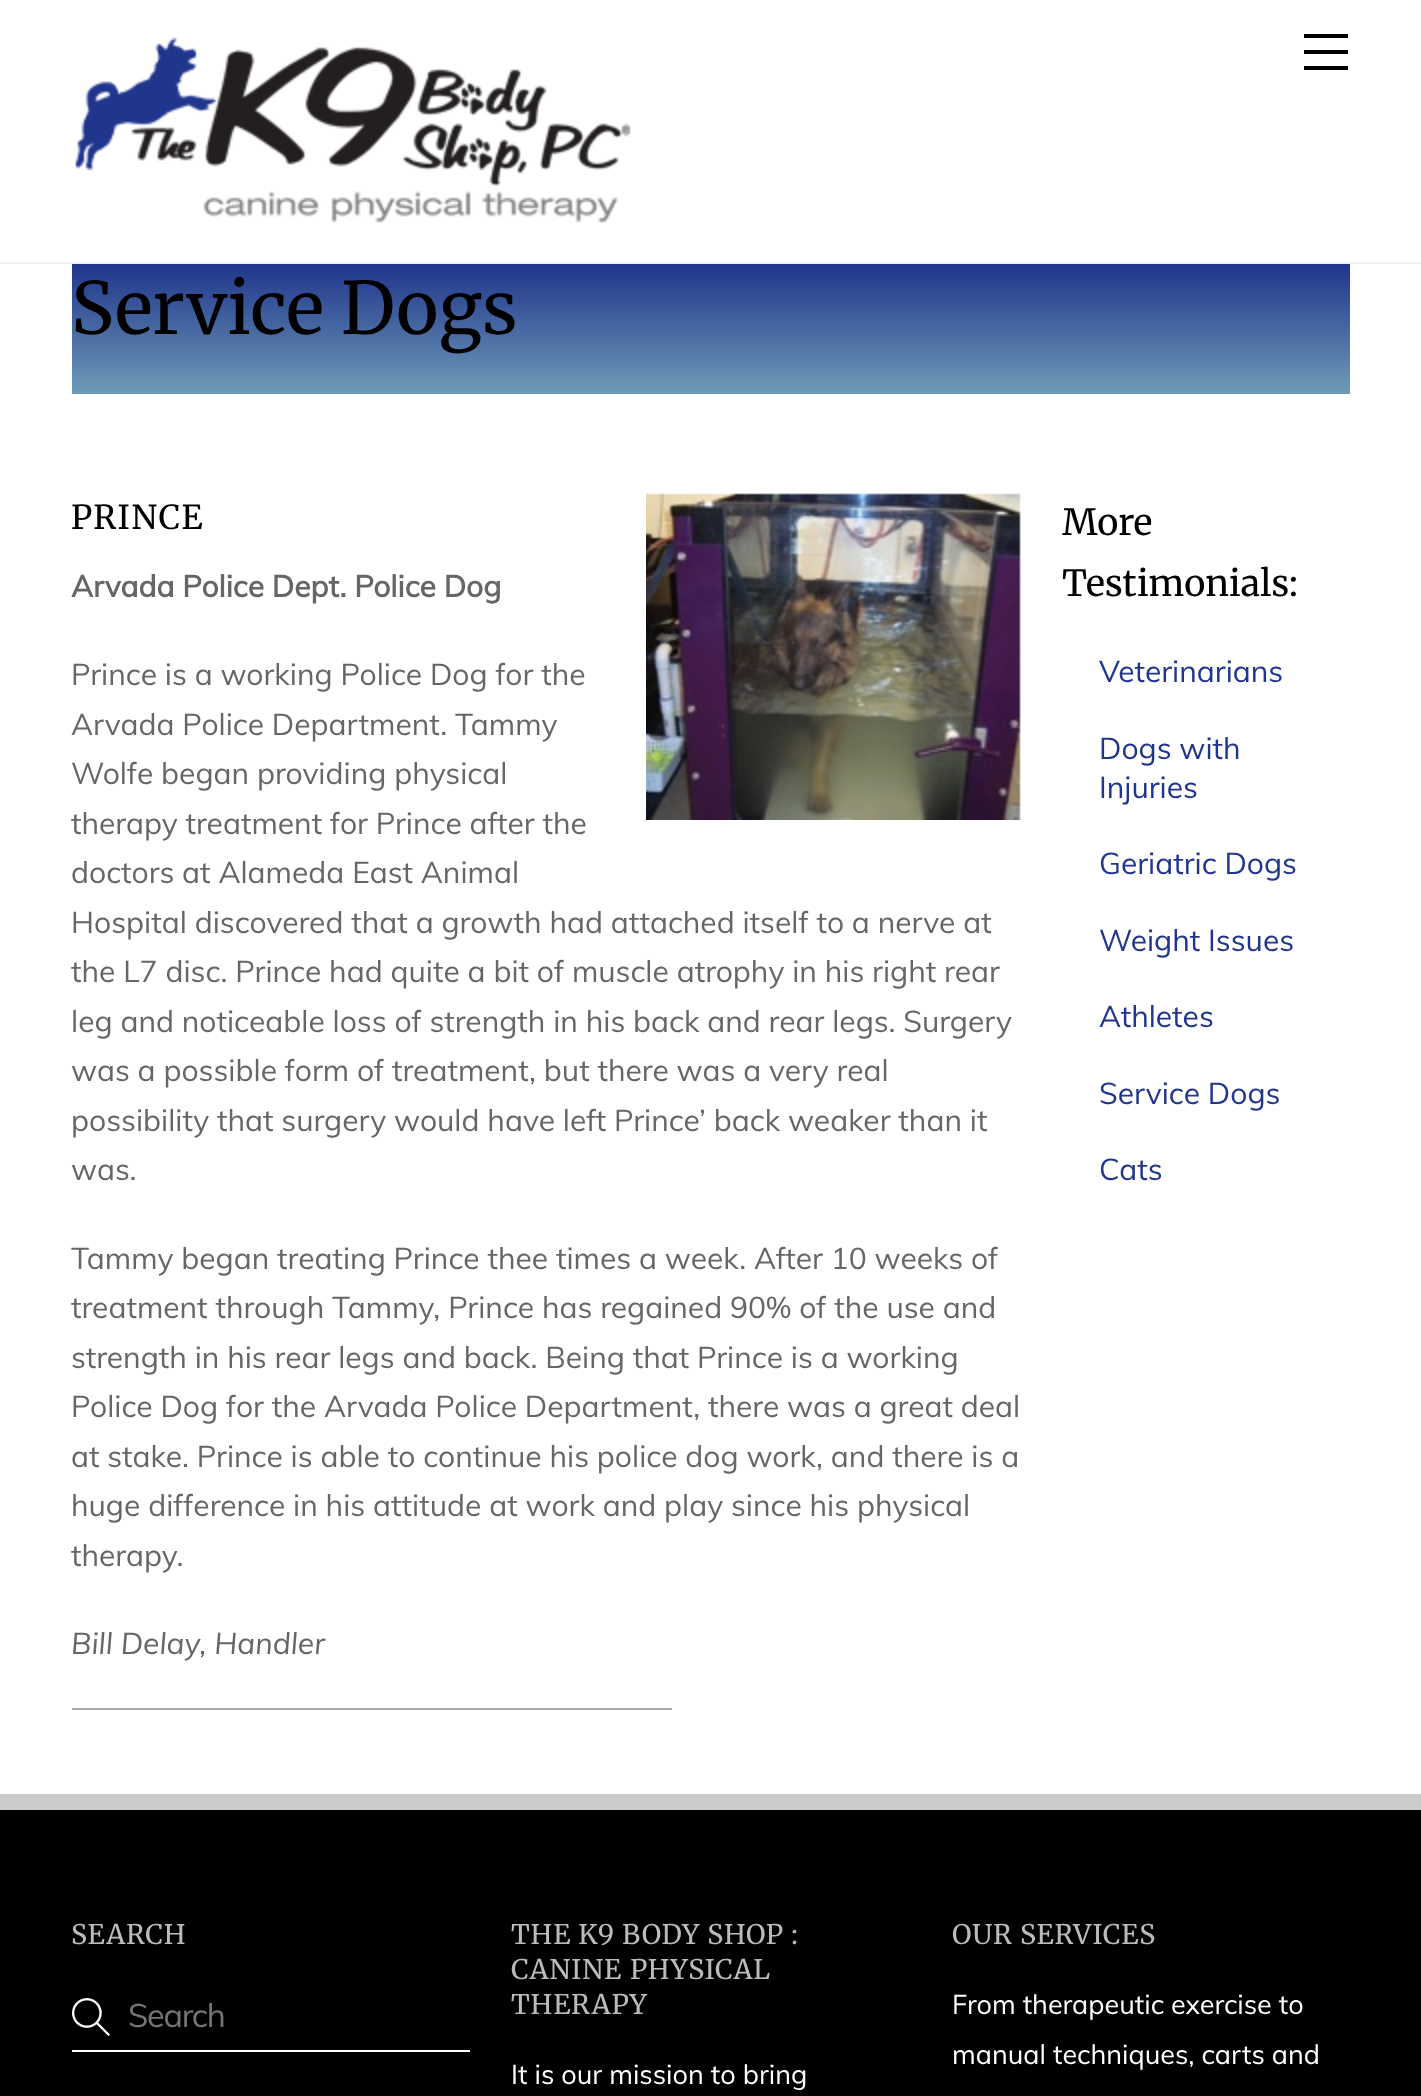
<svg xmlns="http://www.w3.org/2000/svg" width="1421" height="2096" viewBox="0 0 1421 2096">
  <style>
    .t1 { font: 72px Merriweather; fill: #000; }
    .t2 { font: 33px Merriweather; letter-spacing: 1.5px; fill: #000; }
    .t3 { font: bold 30px Muli; fill: #666; }
    .t4 { font: 30px Muli; fill: #666; }
    .t5 { font: italic 30px Muli; fill: #666; }
    .t6 { font: 36px Merriweather; fill: #000; }
    .t7 { font: 30px Muli; fill: #20358c; }
    .t8 { font: 27px Merriweather; letter-spacing: 0.8px; fill: #bbb; }
    .t9 { font: 32.5px Muli; letter-spacing: -1.25px; fill: #757575; }
    .t10 { font: 27px Muli; fill: #fff; }
  </style>
  <defs>
    <linearGradient id="g1" gradientUnits="userSpaceOnUse" x1="711" y1="264" x2="711" y2="394"><stop offset="0" stop-color="#20358c"/><stop offset="0.98" stop-color="#6c99b6"/></linearGradient>
  </defs>
  <rect width="100%" height="100%" fill="#fff"/>
  <rect x="0" y="262" width="1421" height="2" fill="#f2f2f2"/>
  <image x="75" y="37" width="556" height="186" href="images/1.png"/>
  <rect x="1304" y="66" width="44" height="4" fill="#000"/>
  <rect x="1304" y="34" width="44" height="4" fill="#000"/>
  <rect x="1304" y="50" width="44" height="4" fill="#000"/>
  <rect x="72" y="264" width="1278" height="130" fill="url(#g1)"/>
  <text x="71" y="334" class="t1">Service Dogs</text>
  <text x="71" y="529" class="t2">PRINCE</text>
  <image x="646" y="493" width="375" height="327" href="images/2.png"/>
  <text x="71" y="597" class="t3">Arvada Police Dept. Police Dog</text>
  <text x="71" y="685" class="t4">Prince is a working Police Dog for the</text>
  <text x="71" y="735" class="t4">Arvada Police Department. Tammy</text>
  <text x="71" y="784" class="t4">Wolfe began providing physical</text>
  <text x="71" y="834" class="t4">therapy treatment for Prince after the</text>
  <text x="71" y="883" class="t4">doctors at Alameda East Animal</text>
  <text x="71" y="933" class="t4">Hospital discovered that a growth had attached itself to a nerve at</text>
  <text x="71" y="982" class="t4">the L7 disc. Prince had quite a bit of muscle atrophy in his right rear</text>
  <text x="71" y="1032" class="t4">leg and noticeable loss of strength in his back and rear legs. Surgery</text>
  <text x="71" y="1081" class="t4">was a possible form of treatment, but there was a very real</text>
  <text x="71" y="1131" class="t4">possibility that surgery would have left Prince’ back weaker than it</text>
  <text x="71" y="1180" class="t4">was.</text>
  <text x="71" y="1269" class="t4">Tammy began treating Prince thee times a week. After 10 weeks of</text>
  <text x="71" y="1318" class="t4">treatment through Tammy, Prince has regained 90% of the use and</text>
  <text x="71" y="1368" class="t4">strength in his rear legs and back. Being that Prince is a working</text>
  <text x="71" y="1417" class="t4">Police Dog for the Arvada Police Department, there was a great deal</text>
  <text x="71" y="1467" class="t4">at stake. Prince is able to continue his police dog work, and there is a</text>
  <text x="71" y="1516" class="t4">huge difference in his attitude at work and play since his physical</text>
  <text x="71" y="1566" class="t4">therapy.</text>
  <text x="71" y="1654" class="t5">Bill Delay, Handler</text>
  <rect x="72" y="1708" width="600" height="2" fill="#a8a8a8"/>
  <text x="1062" y="535" class="t6">More</text>
  <text x="1062" y="596" class="t6">Testimonials:</text>
  <text x="1099" y="682" class="t7">Veterinarians</text>
  <text x="1099" y="759" class="t7">Dogs with</text>
  <text x="1099" y="798" class="t7">Injuries</text>
  <text x="1099" y="874" class="t7">Geriatric Dogs</text>
  <text x="1099" y="951" class="t7">Weight Issues</text>
  <text x="1099" y="1027" class="t7">Athletes</text>
  <text x="1099" y="1104" class="t7">Service Dogs</text>
  <text x="1099" y="1180" class="t7">Cats</text>
  <rect x="0" y="1810" width="1421" height="286" fill="#000"/>
  <rect x="0" y="1794" width="1421" height="16" fill="#ccc"/>
  <text x="71" y="1944" class="t8">SEARCH</text>
  <rect x="72" y="2050" width="398" height="2" fill="#fff"/>
  <image x="72" y="1998" width="38" height="38" href="images/3.png"/>
  <text x="128" y="2027" class="t9">Search</text>
  <text x="511" y="1944" class="t8">THE K9 BODY SHOP :</text>
  <text x="511" y="1979" word-spacing="1" class="t8">CANINE PHYSICAL</text>
  <text x="511" y="2014" class="t8">THERAPY</text>
  <text x="511" y="2084" class="t10">It is our mission to bring</text>
  <text x="952" y="1944" class="t8">OUR SERVICES</text>
  <text x="952" y="2014" class="t10">From therapeutic exercise to</text>
  <text x="952" y="2064" class="t10">manual techniques, carts and</text>
</svg>
